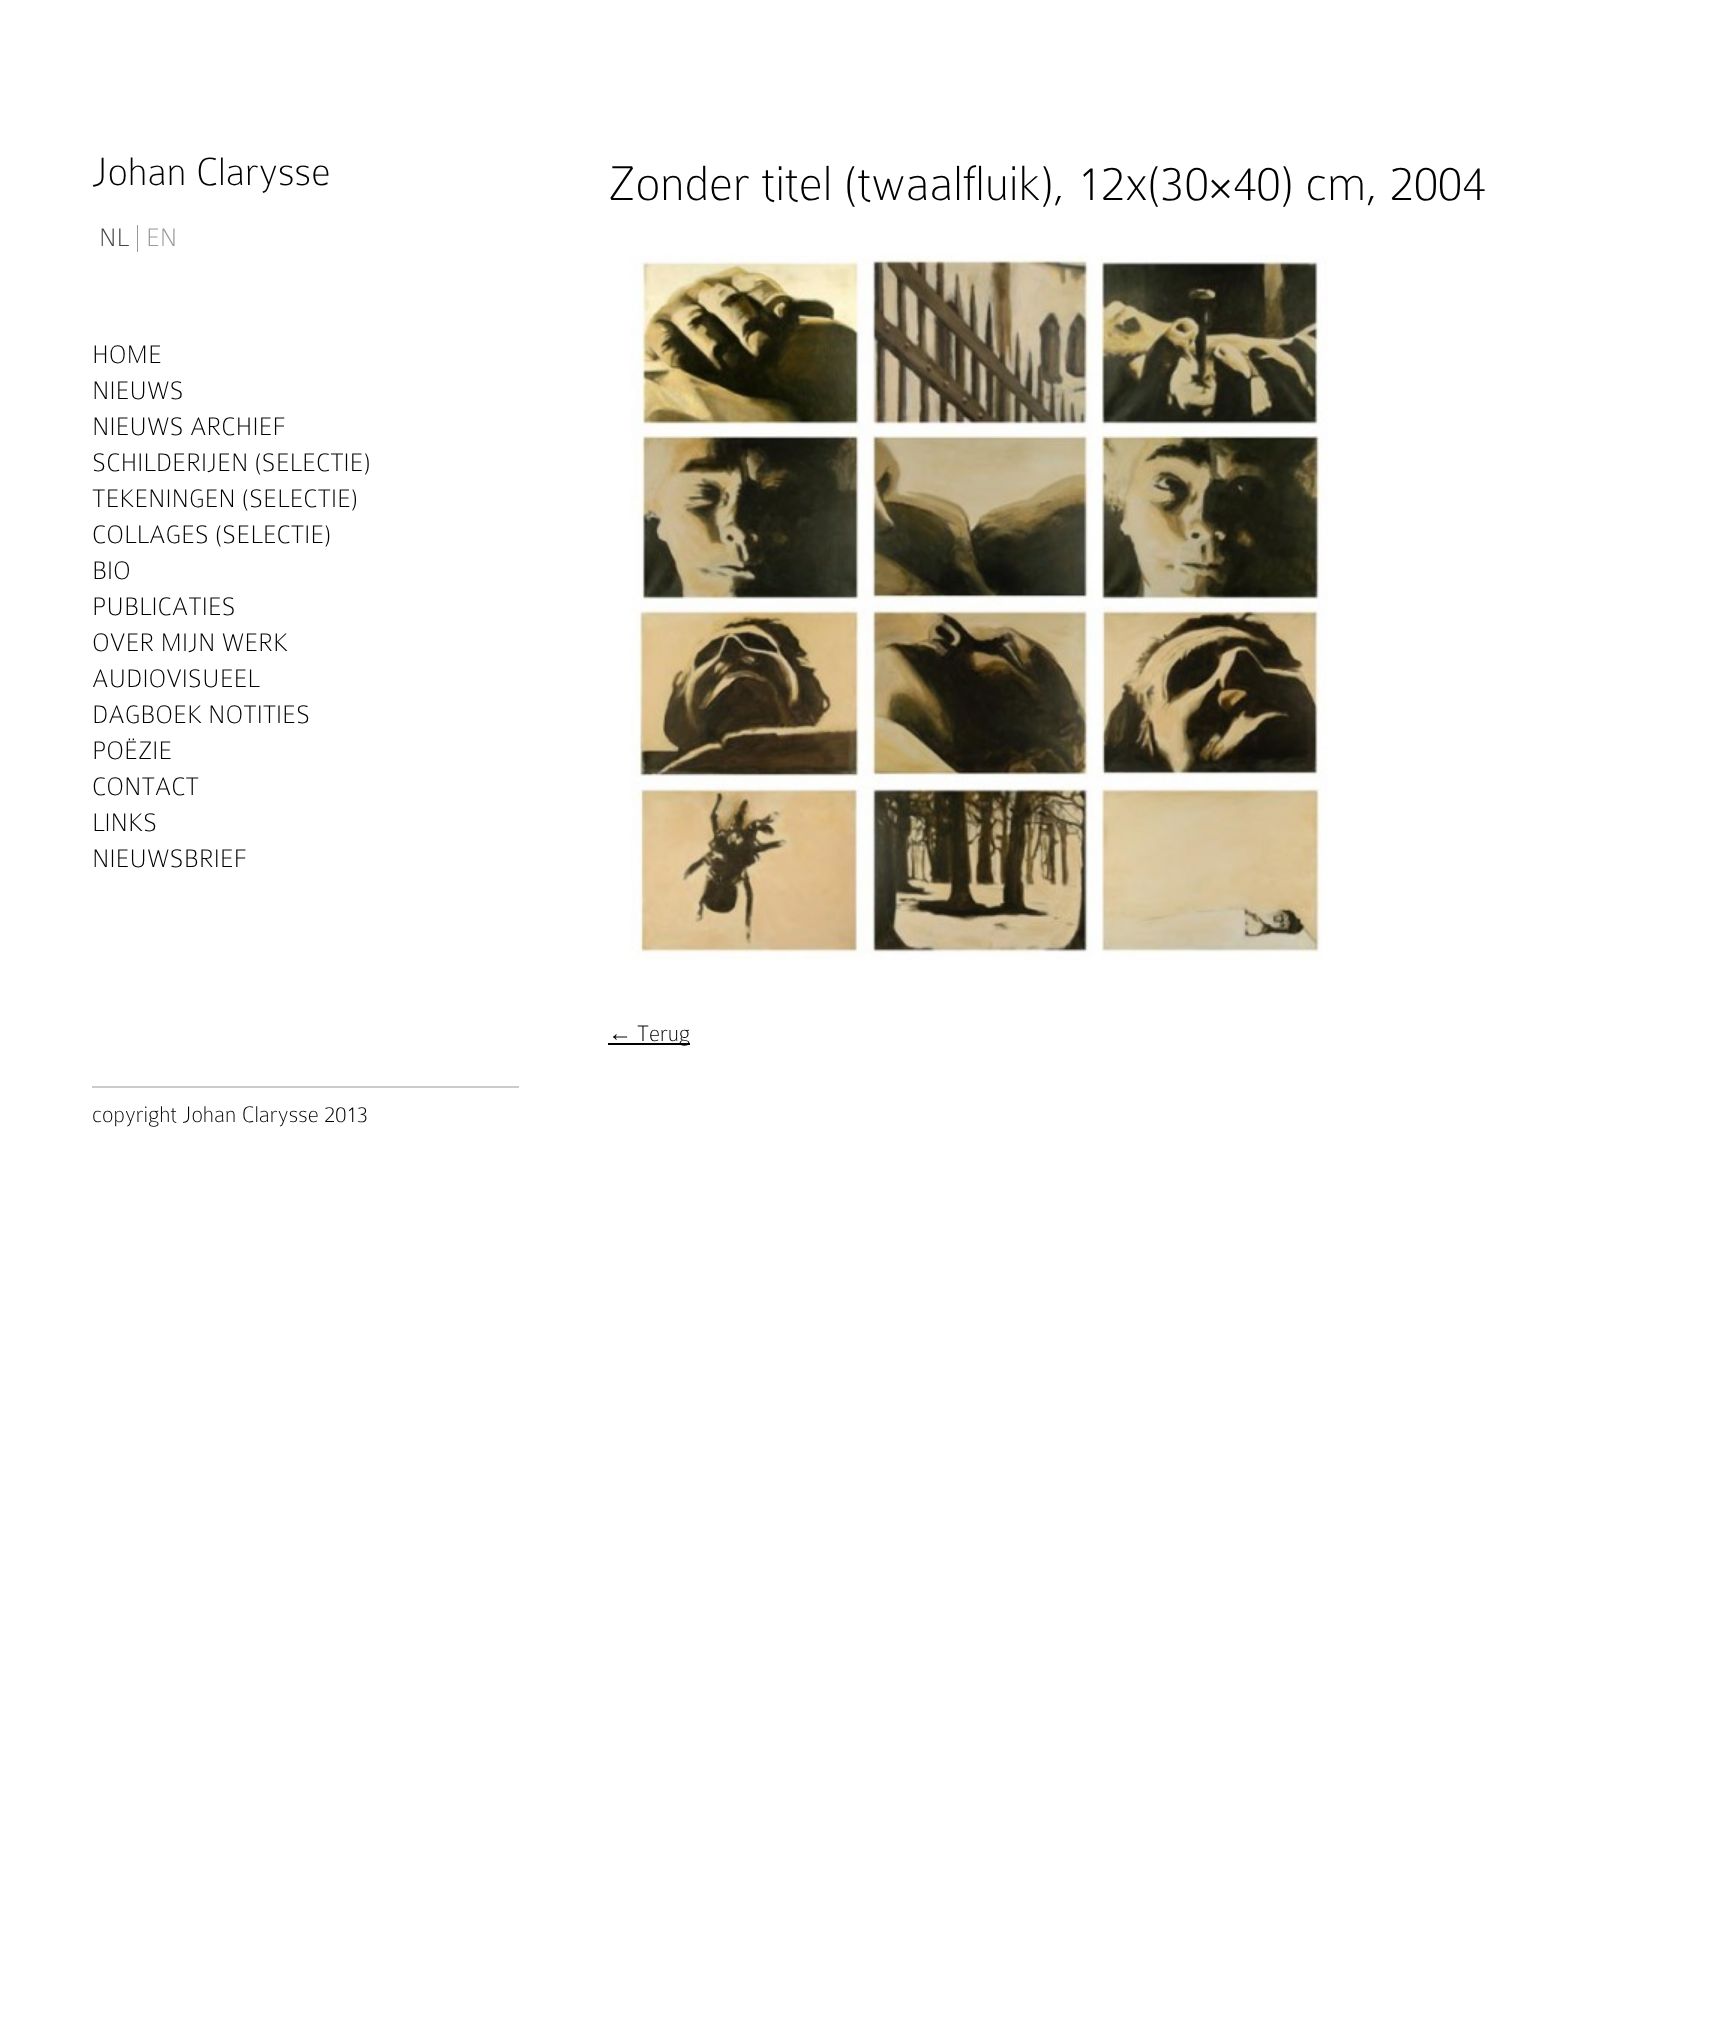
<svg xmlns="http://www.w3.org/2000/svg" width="1718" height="2036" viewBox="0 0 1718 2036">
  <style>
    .t1 { font: 100 42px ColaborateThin; fill: #000; }
    .t2 { font: 100 27px ColaborateThin; fill: #444; }
    .t3 { font: 100 27px ColaborateThin; fill: #999; }
    .t4 { font: 100 27px ColaborateThin; fill: #000; }
    .t5 { font: 100 52px ColaborateThin; fill: #000; }
    .t6 { font: 24px Liberation Sans; fill: #000; }
    .t7 { font: 100 24px ColaborateThin; fill: #000; }
  </style>
  <rect width="100%" height="100%" fill="#fff"/>
  <text x="92" y="185" class="t1">Johan Clarysse</text>
  <rect x="137" y="225" width="1" height="27" fill="#999"/>
  <text x="99" y="246" class="t2">NL</text>
  <text x="146" y="246" class="t3">EN</text>
  <text x="92" y="363" class="t4">HOME</text>
  <text x="92" y="399" class="t4">NIEUWS</text>
  <text x="92" y="435" class="t4">NIEUWS ARCHIEF</text>
  <text x="92" y="471" class="t4">SCHILDERIJEN (SELECTIE)</text>
  <text x="92" y="507" class="t4">TEKENINGEN (SELECTIE)</text>
  <text x="92" y="543" class="t4">COLLAGES (SELECTIE)</text>
  <text x="92" y="579" class="t4">BIO</text>
  <text x="92" y="615" class="t4">PUBLICATIES</text>
  <text x="92" y="651" class="t4">OVER MIJN WERK</text>
  <text x="92" y="687" class="t4">AUDIOVISUEEL</text>
  <text x="92" y="723" class="t4">DAGBOEK NOTITIES</text>
  <text x="92" y="759" class="t4">POËZIE</text>
  <text x="92" y="795" class="t4">CONTACT</text>
  <text x="92" y="831" class="t4">LINKS</text>
  <text x="92" y="867" class="t4">NIEUWSBRIEF</text>
  <text x="608" y="200" class="t5">Zonder titel (twaalfluik), 12x(30×40) cm, 2004</text>
  <image x="631" y="255" width="697" height="705" href="images/1.png"/>
  <text x="608" y="1041" class="t6">←</text>
  <rect x="608" y="1043" width="82" height="2" fill="#000"/>
  <text x="637" y="1041" class="t7">Terug</text>
  <rect x="92" y="1086" width="427" height="2" fill="#ccc"/>
  <text x="92" y="1122" class="t7">copyright Johan Clarysse 2013</text>
</svg>
